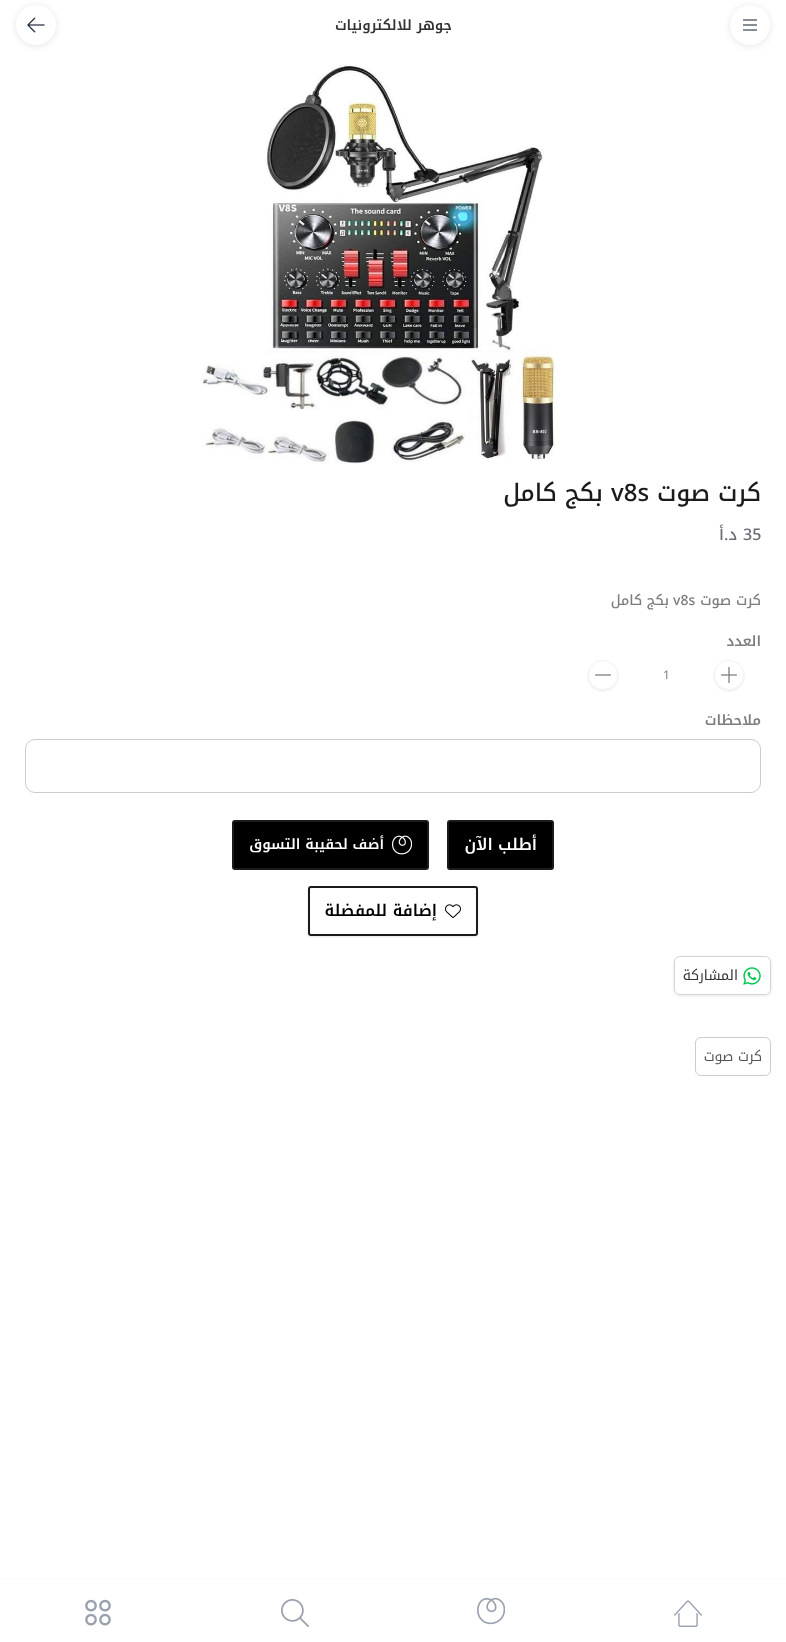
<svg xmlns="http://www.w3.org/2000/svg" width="786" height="1642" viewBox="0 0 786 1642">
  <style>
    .t1 { font: 600 14px Noto Kufi Arabic; direction: rtl; fill: #333; }
    .t2 { font: 500 24px Noto Kufi Arabic; direction: rtl; fill: #1b1b1b; }
    .t3 { font: 500 24px Noto Kufi Arabic; fill: #1b1b1b; }
    .t4 { font: 500 16px Noto Kufi Arabic; fill: #6c6a74; }
    .t5 { font: 500 16px Noto Kufi Arabic; direction: rtl; fill: #6c6a74; }
    .t6 { font: 500 14px Noto Kufi Arabic; direction: rtl; fill: #7d7d7d; }
    .t7 { font: 500 14px Noto Kufi Arabic; fill: #7d7d7d; }
    .t8 { font: 600 14px Noto Kufi Arabic; direction: rtl; fill: #7d7d7d; }
    .t9 { font: 12px Noto Kufi Arabic; fill: #7d7d7d; }
    .t10 { font: 600 16px Noto Kufi Arabic; direction: rtl; fill: #fff; }
    .t11 { font: 600 14px Noto Kufi Arabic; direction: rtl; fill: #fff; }
    .t12 { font: 600 16px Noto Kufi Arabic; direction: rtl; fill: #000; }
    .t13 { font: 14px Noto Kufi Arabic; direction: rtl; fill: #333; }
    .t14 { font: 14px Noto Kufi Arabic; direction: rtl; fill: #555; }
  </style>
  <defs>
    <clipPath id="clip1"><path d="M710 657H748V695H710ZM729 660C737.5 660 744 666.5 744 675C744 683.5 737.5 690 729 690C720.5 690 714 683.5 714 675C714 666.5 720.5 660 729 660Z" clip-rule="evenodd"/></clipPath>
    <clipPath id="clip2"><path d="M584 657H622V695H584ZM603 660C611.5 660 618 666.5 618 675C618 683.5 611.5 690 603 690C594.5 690 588 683.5 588 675C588 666.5 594.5 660 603 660Z" clip-rule="evenodd"/></clipPath>
    <clipPath id="clip3"><path d="M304 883H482V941H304ZM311 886H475C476.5 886 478 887.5 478 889V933C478 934.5 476.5 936 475 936H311C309.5 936 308 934.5 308 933V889C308 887.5 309.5 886 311 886Z" clip-rule="evenodd"/></clipPath>
    <clipPath id="clip4"><path d="M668 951H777V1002H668ZM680 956H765C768.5 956 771 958.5 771 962V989C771 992.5 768.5 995 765 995H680C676.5 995 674 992.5 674 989V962C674 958.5 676.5 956 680 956Z" clip-rule="evenodd"/></clipPath>
  </defs>
  <rect width="100%" height="100%" fill="#fff"/>
  <rect x="730" y="6" width="40" height="40" rx="20" fill="#0000001a" filter="blur(3.5px)"/>
  <circle cx="750" cy="25" r="20" fill="#fff"/>
  <image x="743" y="19" width="14" height="12" href="images/1.png"/>
  <text x="452" y="30" class="t1">جوهر للالكترونيات</text>
  <rect x="16" y="6" width="40" height="40" rx="20" fill="#0000001a" filter="blur(3.5px)"/>
  <circle cx="36" cy="25" r="20" fill="#fff"/>
  <image x="27" y="17" width="18" height="16" href="images/2.png"/>
  <image x="201" y="64" width="356" height="400" href="images/3.png"/>
  <text x="761" y="501" class="t2">كرت صوت</text>
  <text x="611" y="501" class="t3">v8s</text>
  <text x="603" y="501" class="t2">بكج كامل</text>
  <text x="743" y="540" class="t4">35</text>
  <text x="737" y="540" class="t5">د.أ</text>
  <text x="761" y="605" class="t6">كرت صوت</text>
  <text x="673" y="605" class="t7">v8s</text>
  <text x="669" y="605" class="t6">بكج كامل</text>
  <text x="761" y="646" class="t8">العدد</text>
  <g clip-path="url(#clip1)">
    <rect x="714" y="661" width="30" height="30" rx="15" fill="#0000001a" filter="blur(1px)"/>
  </g>
  <circle cx="729" cy="675" r="14.5" fill="none" stroke="#f3f3f3"/>
  <image x="721" y="667" width="16" height="16" href="images/4.png"/>
  <text x="663" y="679" class="t9">1</text>
  <g clip-path="url(#clip2)">
    <rect x="588" y="661" width="30" height="30" rx="15" fill="#0000001a" filter="blur(1px)"/>
  </g>
  <circle cx="603" cy="675" r="14.5" fill="none" stroke="#f3f3f3"/>
  <image x="595" y="674" width="16" height="2" href="images/5.png"/>
  <text x="761" y="725" class="t8">ملاحظات</text>
  <rect x="25.5" y="739.5" width="735" height="53" rx="9.5" fill="none" stroke="#ccc"/>
  <rect x="448" y="821" width="105" height="48" rx="2" fill="#000" stroke="#1b1b1b" stroke-width="2"/>
  <text x="537" y="850" class="t10">أطلب الآن</text>
  <rect x="233" y="821" width="195" height="48" rx="2" fill="#000" stroke="#1b1b1b" stroke-width="2"/>
  <image x="392" y="835" width="20" height="20" href="images/6.png"/>
  <text x="384" y="849" class="t11">أضف لحقيبة التسوق</text>
  <g clip-path="url(#clip3)">
    <rect x="308" y="887" width="170" height="50" rx="3" fill="#0000001a" filter="blur(1px)"/>
  </g>
  <rect x="309" y="887" width="168" height="48" rx="2" fill="none" stroke="#1b1b1b" stroke-width="2"/>
  <image x="445" y="904" width="16" height="14" href="images/7.png"/>
  <text x="437" y="916" class="t12">إضافة للمفضلة</text>
  <g clip-path="url(#clip4)">
    <rect x="674" y="957" width="97" height="39" rx="6" fill="#0000001a" filter="blur(1.5px)"/>
  </g>
  <rect x="674.5" y="956.5" width="96" height="38" rx="5.5" fill="none" stroke="#d1d5dc"/>
  <image x="743" y="967" width="18" height="18" href="images/8.png"/>
  <text x="738" y="980" class="t13">المشاركة</text>
  <rect x="695.5" y="1037.5" width="75" height="38" rx="5.5" fill="none" stroke="#ccc"/>
  <text x="762" y="1061" class="t14">كرت صوت</text>
  <rect x="0" y="1578" width="786" height="1" fill="#f9fafb"/>
  <image x="674" y="1600" width="28" height="27" href="images/9.png"/>
  <image x="477" y="1597" width="28" height="28" href="images/10.png"/>
  <image x="281" y="1599" width="28" height="28" href="images/11.png"/>
  <image x="85" y="1599" width="26" height="27" href="images/12.png"/>
</svg>
